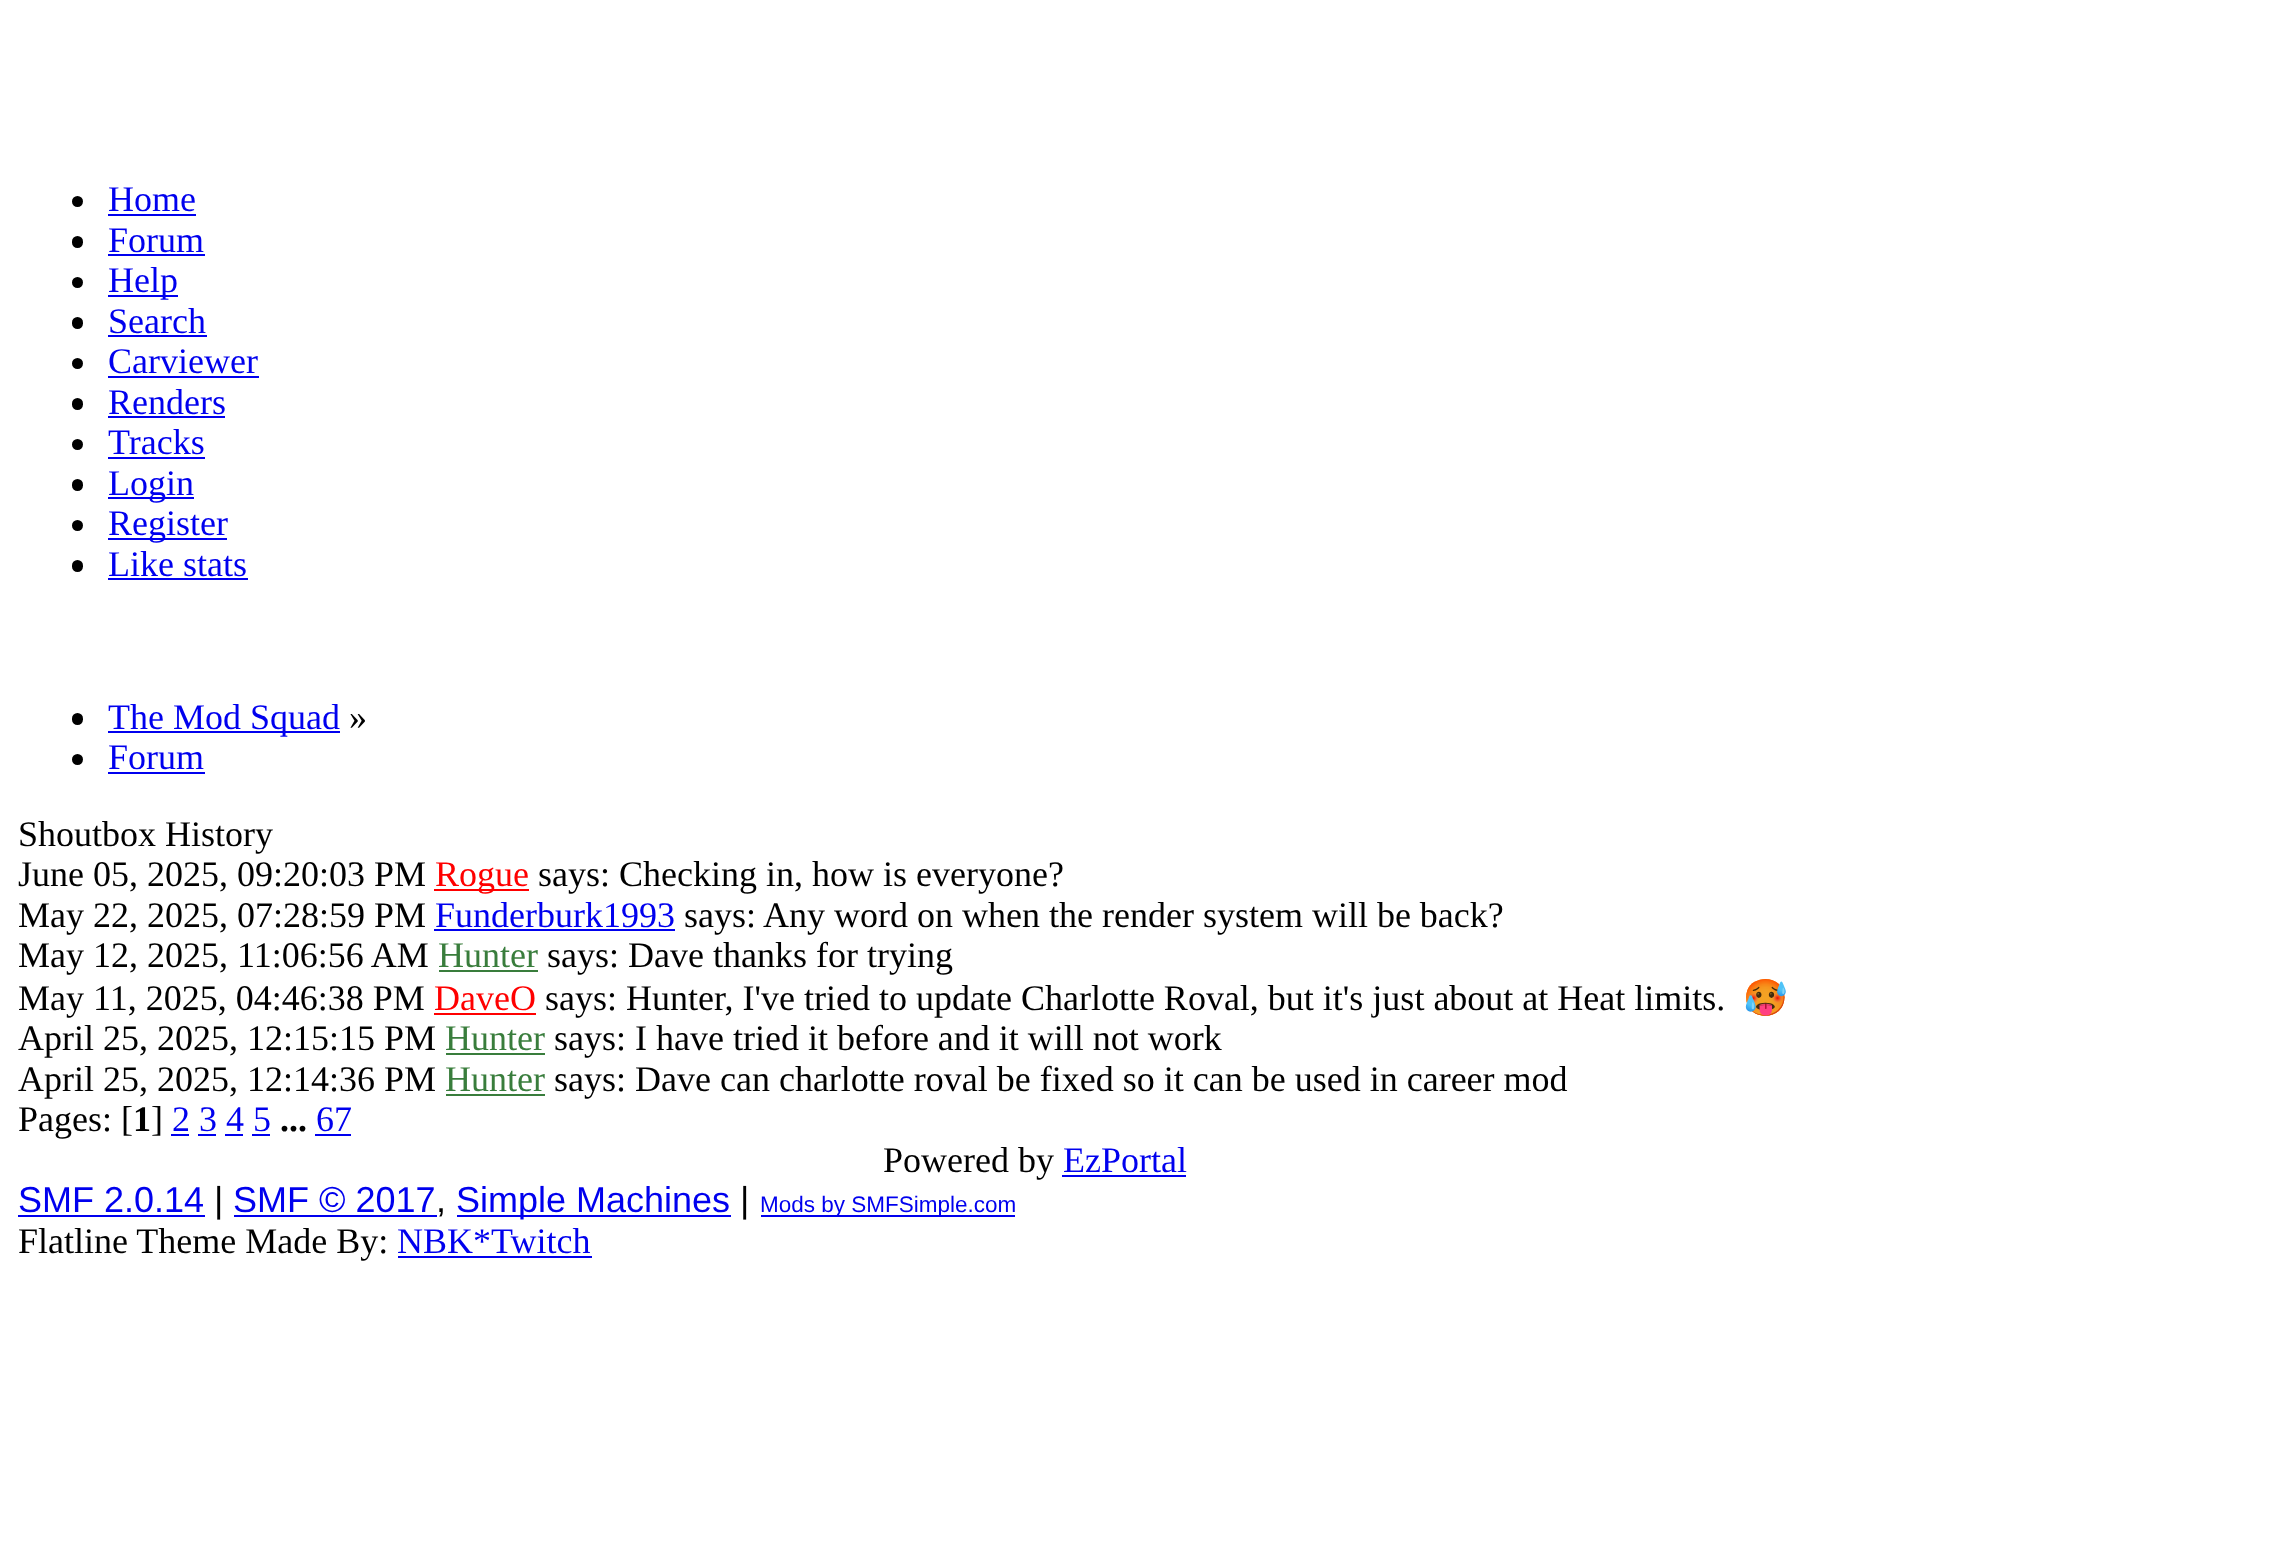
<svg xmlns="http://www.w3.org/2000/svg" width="2295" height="1546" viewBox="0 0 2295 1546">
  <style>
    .t1 { font: 36px Liberation Serif; fill: #00e; }
    .t2 { font: 36px Liberation Serif; fill: #000; }
    .t3 { font: 36px Liberation Serif; fill: #f00; }
    .t4 { font: 36px Liberation Serif; fill: #397d3c; }
    .t5 { font: 36px Noto Color Emoji; fill: #000; }
    .t6 { font: bold 36px Liberation Serif; fill: #000; }
    .t7 { font: 36px Liberation Sans; fill: #00e; }
    .t8 { font: 36px Liberation Sans; fill: #000; }
    .t9 { font: 22.5px Liberation Sans; fill: #00e; }
  </style>
  <rect width="100%" height="100%" fill="#fff"/>
  <circle cx="77.5" cy="201.5" r="5.5" fill="#000"/>
  <text x="108" y="211" class="t1">Home</text>
  <rect x="108" y="214" width="88" height="2" fill="#00e"/>
  <rect x="72" y="236" width="11" height="12" rx="5.5" fill="#000"/>
  <text x="108" y="252" class="t1">Forum</text>
  <rect x="108" y="254" width="97" height="2" fill="#00e"/>
  <circle cx="77.5" cy="282.5" r="5.5" fill="#000"/>
  <rect x="108" y="295" width="70" height="2" fill="#00e"/>
  <text x="108" y="292" class="t1">Help</text>
  <rect x="72" y="317" width="11" height="12" rx="5.5" fill="#000"/>
  <text x="108" y="333" class="t1">Search</text>
  <rect x="108" y="335" width="99" height="2" fill="#00e"/>
  <circle cx="77.5" cy="363.5" r="5.5" fill="#000"/>
  <text x="108" y="373" class="t1">Carviewer</text>
  <rect x="108" y="376" width="151" height="2" fill="#00e"/>
  <rect x="72" y="398" width="11" height="12" rx="5.5" fill="#000"/>
  <text x="108" y="414" class="t1">Renders</text>
  <rect x="108" y="416" width="117" height="2" fill="#00e"/>
  <circle cx="77.5" cy="444.5" r="5.5" fill="#000"/>
  <text x="108" y="454" class="t1">Tracks</text>
  <rect x="108" y="457" width="97" height="2" fill="#00e"/>
  <rect x="72" y="479" width="11" height="12" rx="5.5" fill="#000"/>
  <rect x="108" y="497" width="86" height="2" fill="#00e"/>
  <text x="108" y="495" class="t1">Login</text>
  <circle cx="77.5" cy="525.5" r="5.5" fill="#000"/>
  <rect x="108" y="538" width="119" height="2" fill="#00e"/>
  <text x="108" y="535" class="t1">Register</text>
  <rect x="72" y="560" width="11" height="12" rx="5.5" fill="#000"/>
  <text x="108" y="576" class="t1">Like stats</text>
  <rect x="108" y="578" width="140" height="2" fill="#00e"/>
  <rect x="72" y="713" width="11" height="12" rx="5.5" fill="#000"/>
  <rect x="108" y="731" width="232" height="2" fill="#00e"/>
  <text x="108" y="729" class="t1">The Mod Squad</text>
  <text x="349" y="729" class="t2">»</text>
  <circle cx="77.5" cy="759.5" r="5.5" fill="#000"/>
  <text x="108" y="769" class="t1">Forum</text>
  <rect x="108" y="772" width="97" height="2" fill="#00e"/>
  <text x="18" y="846" class="t2">Shoutbox History</text>
  <text x="18" y="886" class="t2">June 05, 2025, 09:20:03 PM</text>
  <rect x="434" y="889" width="95" height="2" fill="#f00"/>
  <text x="435" y="886" class="t3">Rogue</text>
  <text x="538" y="886" class="t2">says: Checking in, how is everyone?</text>
  <text x="18" y="927" class="t2">May 22, 2025, 07:28:59 PM</text>
  <text x="435" y="927" class="t1">Funderburk1993</text>
  <rect x="434" y="929" width="241" height="2" fill="#00e"/>
  <text x="684" y="927" class="t2">says: Any word on when the render system will be back?</text>
  <text x="18" y="967" class="t2">May 12, 2025, 11:06:56 AM</text>
  <text x="438" y="967" class="t4">Hunter</text>
  <rect x="439" y="970" width="99" height="2" fill="#397d3c"/>
  <text x="547" y="967" class="t2">says: Dave thanks for trying</text>
  <text x="18" y="1010" class="t2">May 11, 2025, 04:46:38 PM</text>
  <text x="434" y="1010" class="t3">DaveO</text>
  <rect x="434" y="1013" width="102" height="2" fill="#f00"/>
  <text x="545" y="1010" class="t2">says: Hunter, I've tried to update Charlotte Roval, but it's just about at Heat limits.</text>
  <text x="1743" y="1010" class="t5">🥵</text>
  <text x="18" y="1050" class="t2">April 25, 2025, 12:15:15 PM</text>
  <text x="445" y="1050" class="t4">Hunter</text>
  <rect x="446" y="1053" width="99" height="2" fill="#397d3c"/>
  <text x="554" y="1050" class="t2">says: I have tried it before and it will not work</text>
  <text x="18" y="1091" class="t2">April 25, 2025, 12:14:36 PM</text>
  <text x="445" y="1091" class="t4">Hunter</text>
  <rect x="446" y="1094" width="99" height="2" fill="#397d3c"/>
  <text x="554" y="1091" class="t2">says: Dave can charlotte roval be fixed so it can be used in career mod</text>
  <text x="18" y="1131" class="t2">Pages: [</text>
  <text x="133" y="1131" class="t6">1</text>
  <text x="151" y="1131" class="t2">]</text>
  <text x="172" y="1131" class="t1">2 3 4 5</text>
  <rect x="171" y="1134" width="18" height="2" fill="#00e"/>
  <text x="280" y="1131" class="t6">...</text>
  <text x="316" y="1131" class="t1">67</text>
  <rect x="315" y="1134" width="36" height="2" fill="#00e"/>
  <rect x="198" y="1134" width="18" height="2" fill="#00e"/>
  <rect x="225" y="1134" width="18" height="2" fill="#00e"/>
  <rect x="252" y="1134" width="18" height="2" fill="#00e"/>
  <text x="883" y="1172" class="t2">Powered by</text>
  <text x="1063" y="1172" class="t1">EzPortal</text>
  <rect x="1062" y="1175" width="124" height="2" fill="#00e"/>
  <text x="18" y="1212" class="t7">SMF 2.0.14</text>
  <rect x="18" y="1215" width="187" height="2" fill="#00e"/>
  <text x="214" y="1212" class="t8">|</text>
  <text x="233" y="1212" class="t7">SMF © 2017</text>
  <text x="436" y="1212" class="t8">,</text>
  <rect x="234" y="1215" width="203" height="2" fill="#00e"/>
  <rect x="457" y="1215" width="274" height="2" fill="#00e"/>
  <text x="456" y="1212" class="t7">Simple Machines</text>
  <text x="740" y="1212" class="t8">|</text>
  <rect x="761" y="1215" width="254" height="2" fill="#00e"/>
  <text x="760" y="1212" class="t9">Mods by SMFSimple.com</text>
  <text x="18" y="1253" class="t2">Flatline Theme Made By:</text>
  <text x="397" y="1253" class="t1">NBK*Twitch</text>
  <rect x="398" y="1256" width="194" height="2" fill="#00e"/>
</svg>
